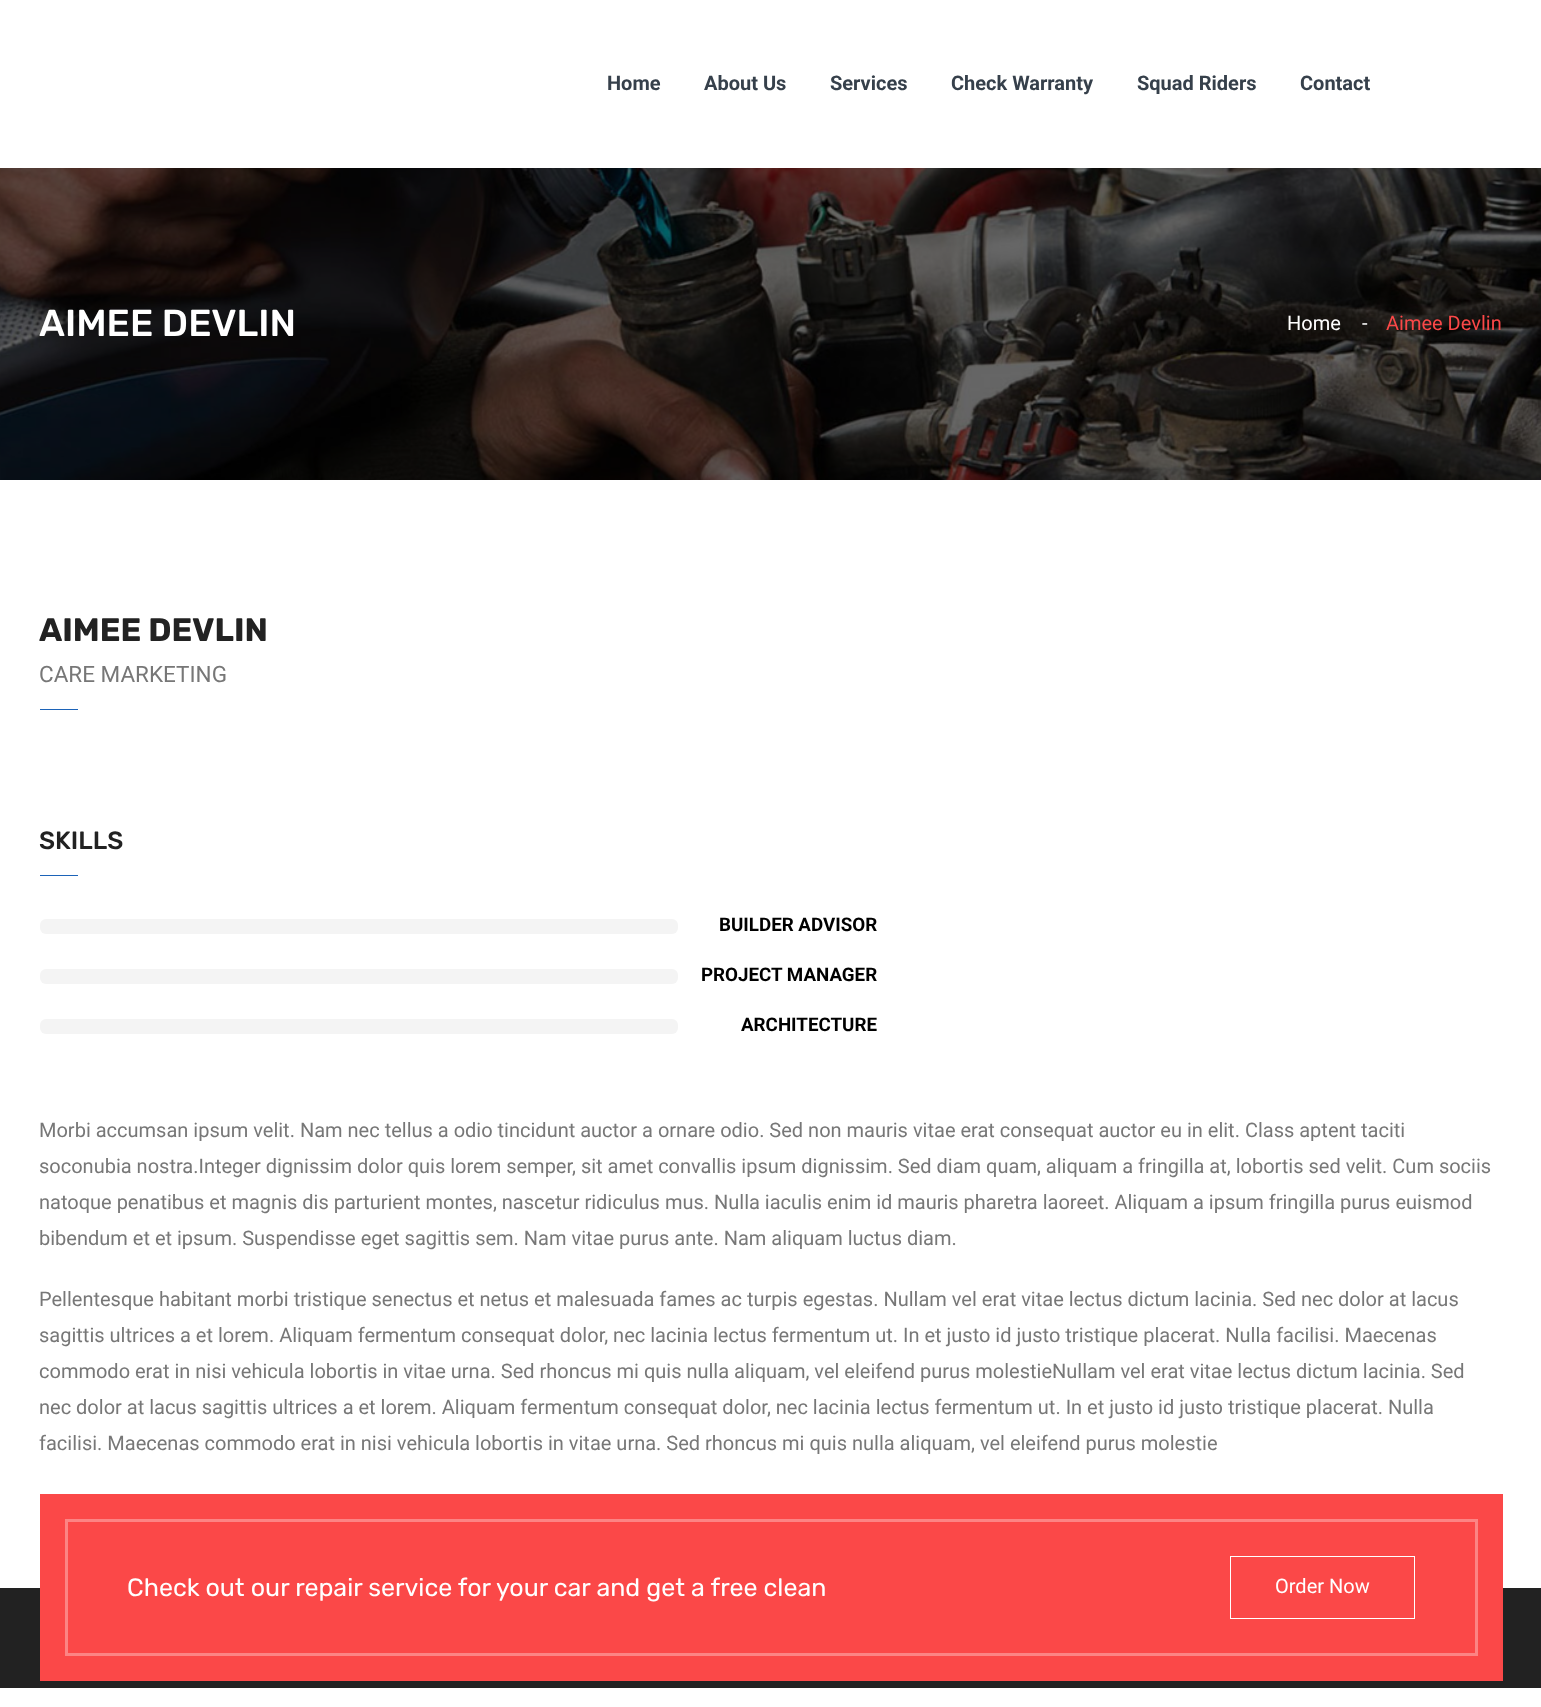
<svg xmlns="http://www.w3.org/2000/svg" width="1541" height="1707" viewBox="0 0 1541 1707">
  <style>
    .t1 { font: bold 20px Roboto; fill: #36404b; }
    .t2 { font: 500 37.5px Rubik; fill: #fff; }
    .t3 { font: 20px Roboto; fill: #fff; }
    .t4 { font: 20px Roboto; fill: #fb4848; }
    .t5 { font: bold 32.5px Rubik; fill: #222; }
    .t6 { font: 22.5px Roboto; fill: #777; }
    .t7 { font: 500 25px Rubik; fill: #222; }
    .t8 { font: bold 18.75px Roboto; fill: #000; }
    .t9 { font: 20px Roboto; fill: #777; }
    .t10 { font: 25px Rubik; fill: #fff; }
  </style>
  <rect width="100%" height="100%" fill="#fff"/>
  <text x="607" y="90" class="t1">Home</text>
  <text x="704" y="90" class="t1">About Us</text>
  <text x="830" y="90" class="t1">Services</text>
  <text x="951" y="90" class="t1">Check Warranty</text>
  <text x="1137" y="90" class="t1">Squad Riders</text>
  <text x="1300" y="90" class="t1">Contact</text>
  <image x="0" y="168" width="1541" height="312" href="images/1.png"/>
  <text x="39" y="336" class="t2">AIMEE DEVLIN</text>
  <text x="1287" y="330" class="t3">Home</text>
  <text x="1362" y="330" class="t3">-</text>
  <text x="1386" y="330" class="t4">Aimee Devlin</text>
  <text x="39" y="641" class="t5">AIMEE DEVLIN</text>
  <text x="39" y="682" class="t6">CARE MARKETING</text>
  <rect x="40" y="709" width="38" height="1" fill="#1c63b8"/>
  <text x="39" y="849" class="t7">SKILLS</text>
  <rect x="40" y="875" width="38" height="1" fill="#1c63b8"/>
  <rect x="40" y="919" width="638" height="15" rx="6" fill="#f4f4f4"/>
  <text x="719" y="931" class="t8">BUILDER ADVISOR</text>
  <rect x="40" y="969" width="638" height="15" rx="6" fill="#f4f4f4"/>
  <text x="701" y="981" class="t8">PROJECT MANAGER</text>
  <rect x="40" y="1019" width="638" height="15" rx="6" fill="#f4f4f4"/>
  <text x="741" y="1031" class="t8">ARCHITECTURE</text>
  <text x="39" y="1137" class="t9">Morbi accumsan ipsum velit. Nam nec tellus a odio tincidunt auctor a ornare odio. Sed non mauris vitae erat consequat auctor eu in elit. Class aptent taciti</text>
  <text x="39" y="1173" class="t9">soconubia nostra.Integer dignissim dolor quis lorem semper, sit amet convallis ipsum dignissim. Sed diam quam, aliquam a fringilla at, lobortis sed velit. Cum sociis</text>
  <text x="39" y="1209" class="t9">natoque penatibus et magnis dis parturient montes, nascetur ridiculus mus. Nulla iaculis enim id mauris pharetra laoreet. Aliquam a ipsum fringilla purus euismod</text>
  <text x="39" y="1245" class="t9">bibendum et et ipsum. Suspendisse eget sagittis sem. Nam vitae purus ante. Nam aliquam luctus diam.</text>
  <text x="39" y="1306" class="t9">Pellentesque habitant morbi tristique senectus et netus et malesuada fames ac turpis egestas. Nullam vel erat vitae lectus dictum lacinia. Sed nec dolor at lacus</text>
  <text x="39" y="1342" class="t9">sagittis ultrices a et lorem. Aliquam fermentum consequat dolor, nec lacinia lectus fermentum ut. In et justo id justo tristique placerat. Nulla facilisi. Maecenas</text>
  <text x="39" y="1378" class="t9">commodo erat in nisi vehicula lobortis in vitae urna. Sed rhoncus mi quis nulla aliquam, vel eleifend purus molestieNullam vel erat vitae lectus dictum lacinia. Sed</text>
  <text x="39" y="1414" class="t9">nec dolor at lacus sagittis ultrices a et lorem. Aliquam fermentum consequat dolor, nec lacinia lectus fermentum ut. In et justo id justo tristique placerat. Nulla</text>
  <text x="39" y="1450" class="t9">facilisi. Maecenas commodo erat in nisi vehicula lobortis in vitae urna. Sed rhoncus mi quis nulla aliquam, vel eleifend purus molestie</text>
  <rect x="0" y="1588" width="1541" height="100" fill="#222"/>
  <rect x="40" y="1494" width="1463" height="187" fill="#fb4848"/>
  <rect x="66.5" y="1520.5" width="1410" height="134" fill="none" stroke="#fc8484" stroke-width="3"/>
  <text x="127" y="1596" class="t10">Check out our repair service for your car and get a free clean</text>
  <rect x="1230.5" y="1556.5" width="184" height="62" fill="none" stroke="#fff"/>
  <text x="1275" y="1593" class="t3">Order Now</text>
</svg>
